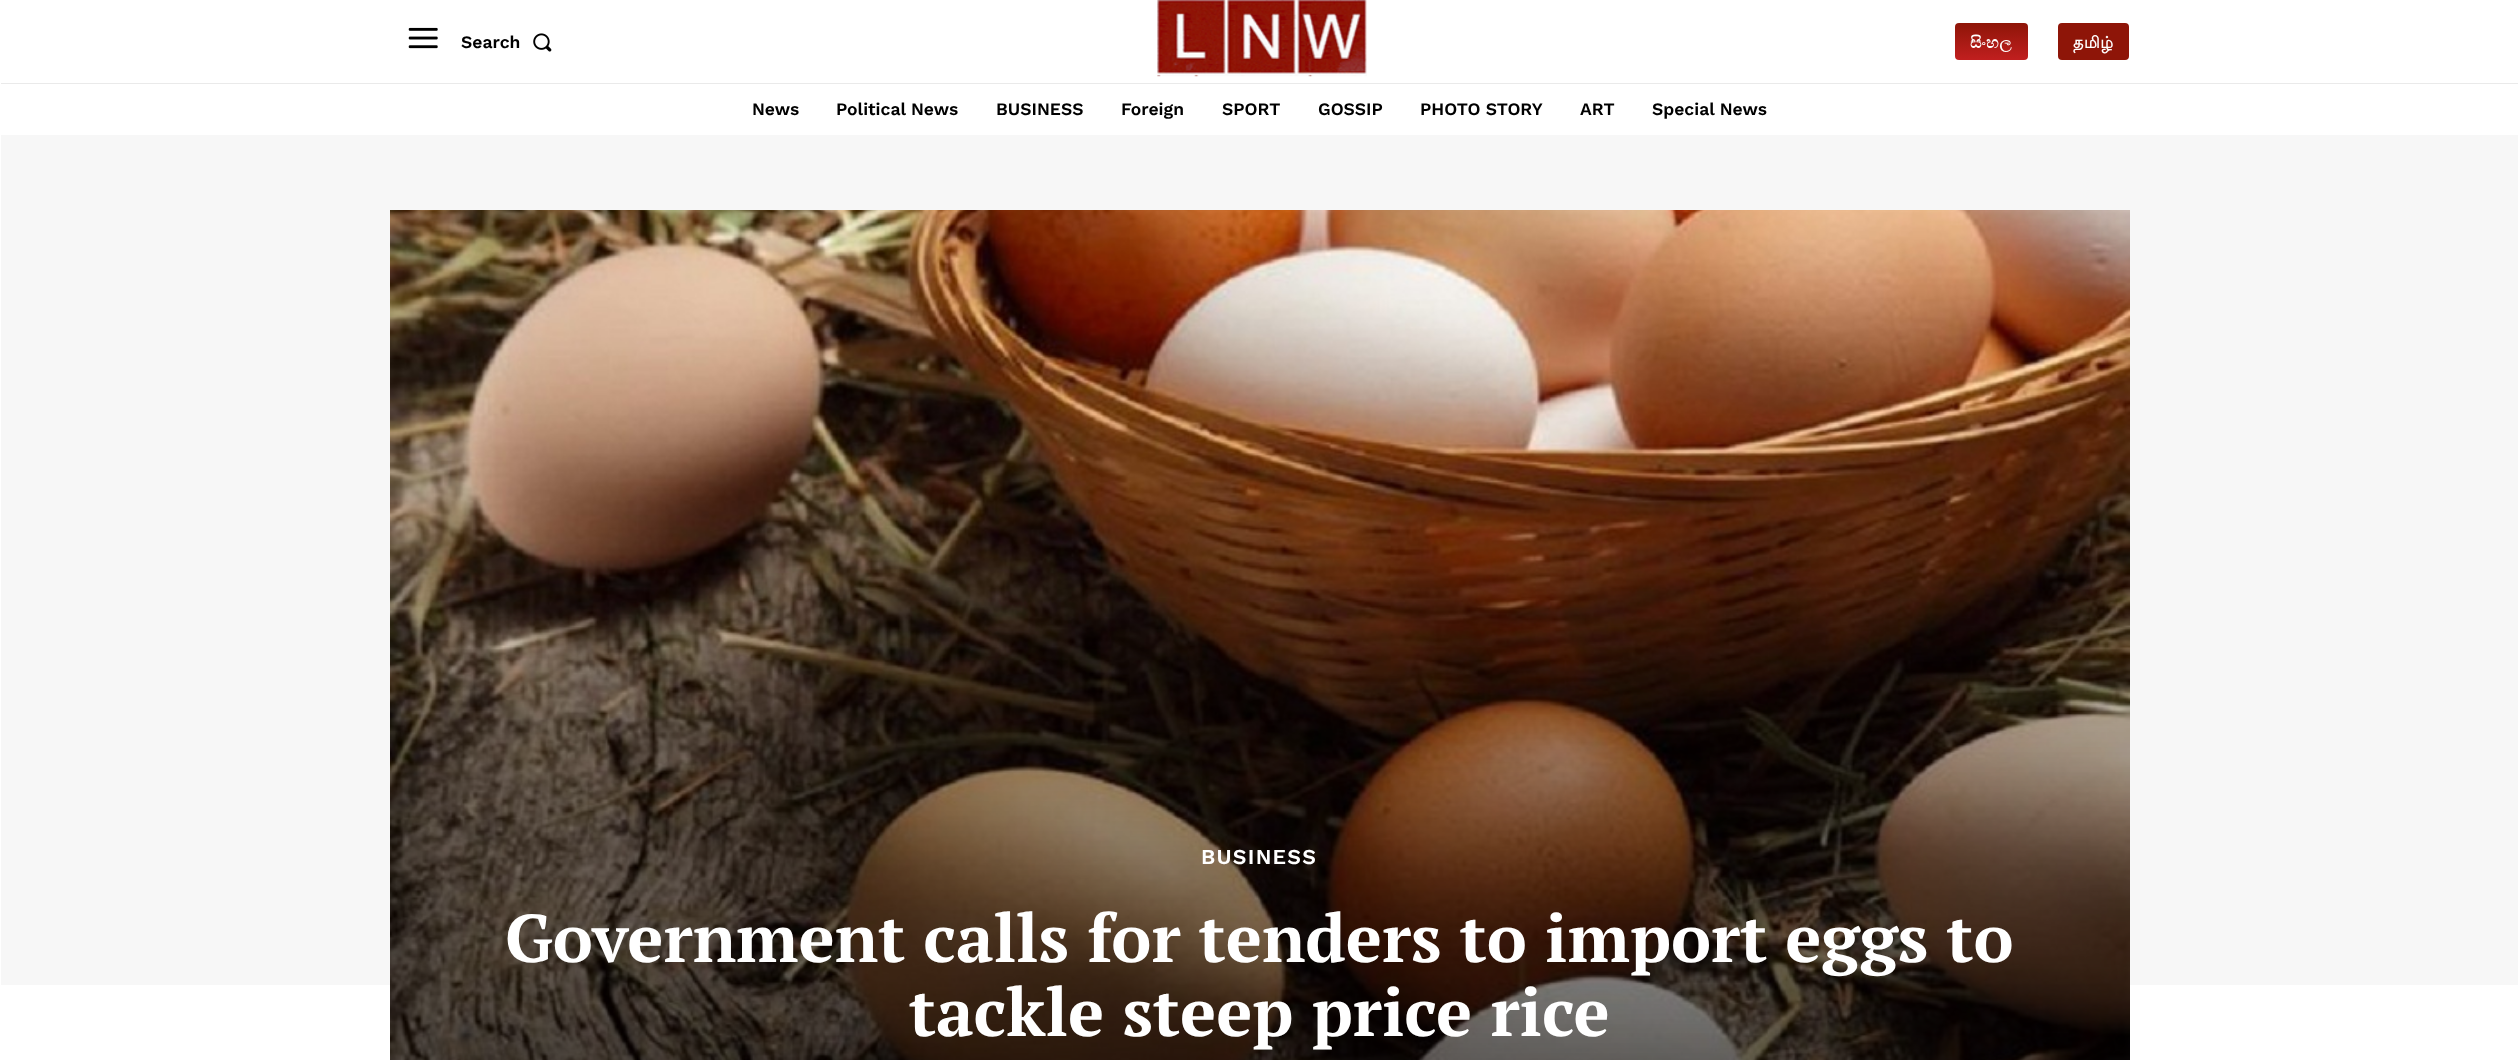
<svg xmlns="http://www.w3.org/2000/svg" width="2518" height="1060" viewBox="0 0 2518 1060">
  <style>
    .t1 { font: 600 17.5px Work Sans; fill: #000; }
    .t2 { font: bold 16px FreeSerif; letter-spacing: 0.5px; fill: #fff; }
    .t3 { font: bold 16px Lohit Tamil; letter-spacing: 0.5px; fill: #fff; }
    .t4 { font: 600 21.25px Work Sans; letter-spacing: 1.25px; fill: #fff; }
    .t5 { font: bold 67.5px PT Serif; fill: #fff; }
  </style>
  <defs>
    <linearGradient id="g1" gradientUnits="userSpaceOnUse" x1="1991" y1="60" x2="1991" y2="23"><stop offset="0" stop-color="#c11f1f"/><stop offset="1" stop-color="#8e1508"/></linearGradient>
  </defs>
  <rect width="100%" height="100%" fill="#fff"/>
  <image x="408" y="27" width="30" height="22" href="images/1.png"/>
  <text x="461" y="48" class="t1">Search</text>
  <image x="533" y="33" width="19" height="19" href="images/2.png"/>
  <image x="1157" y="0" width="210" height="77" href="images/3.png"/>
  <rect x="1955" y="23" width="73" height="37" rx="4" fill="url(#g1)"/>
  <text x="1970" y="48" class="t2">සිංහල</text>
  <rect x="2058" y="23" width="71" height="37" rx="4" fill="#8e1508"/>
  <text x="2073" y="48" class="t3">தமிழ்</text>
  <rect x="1" y="83" width="2517" height="1" fill="#eaeaea"/>
  <text x="752" y="115" class="t1">News</text>
  <text x="836" y="115" class="t1">Political News</text>
  <text x="996" y="115" class="t1">BUSINESS</text>
  <text x="1121" y="115" class="t1">Foreign</text>
  <text x="1222" y="115" class="t1">SPORT</text>
  <text x="1318" y="115" class="t1">GOSSIP</text>
  <text x="1420" y="115" class="t1">PHOTO STORY</text>
  <text x="1580" y="115" class="t1">ART</text>
  <text x="1652" y="115" class="t1">Special News</text>
  <rect x="1" y="135" width="2517" height="850" fill="#f7f7f7"/>
  <image x="390" y="210" width="1740" height="850" href="images/4.png"/>
  <text x="1201" y="864" class="t4">BUSINESS</text>
  <text x="505" y="962" class="t5">Government calls for tenders to import eggs to</text>
  <text x="909" y="1036" class="t5">tackle steep price rice</text>
</svg>
